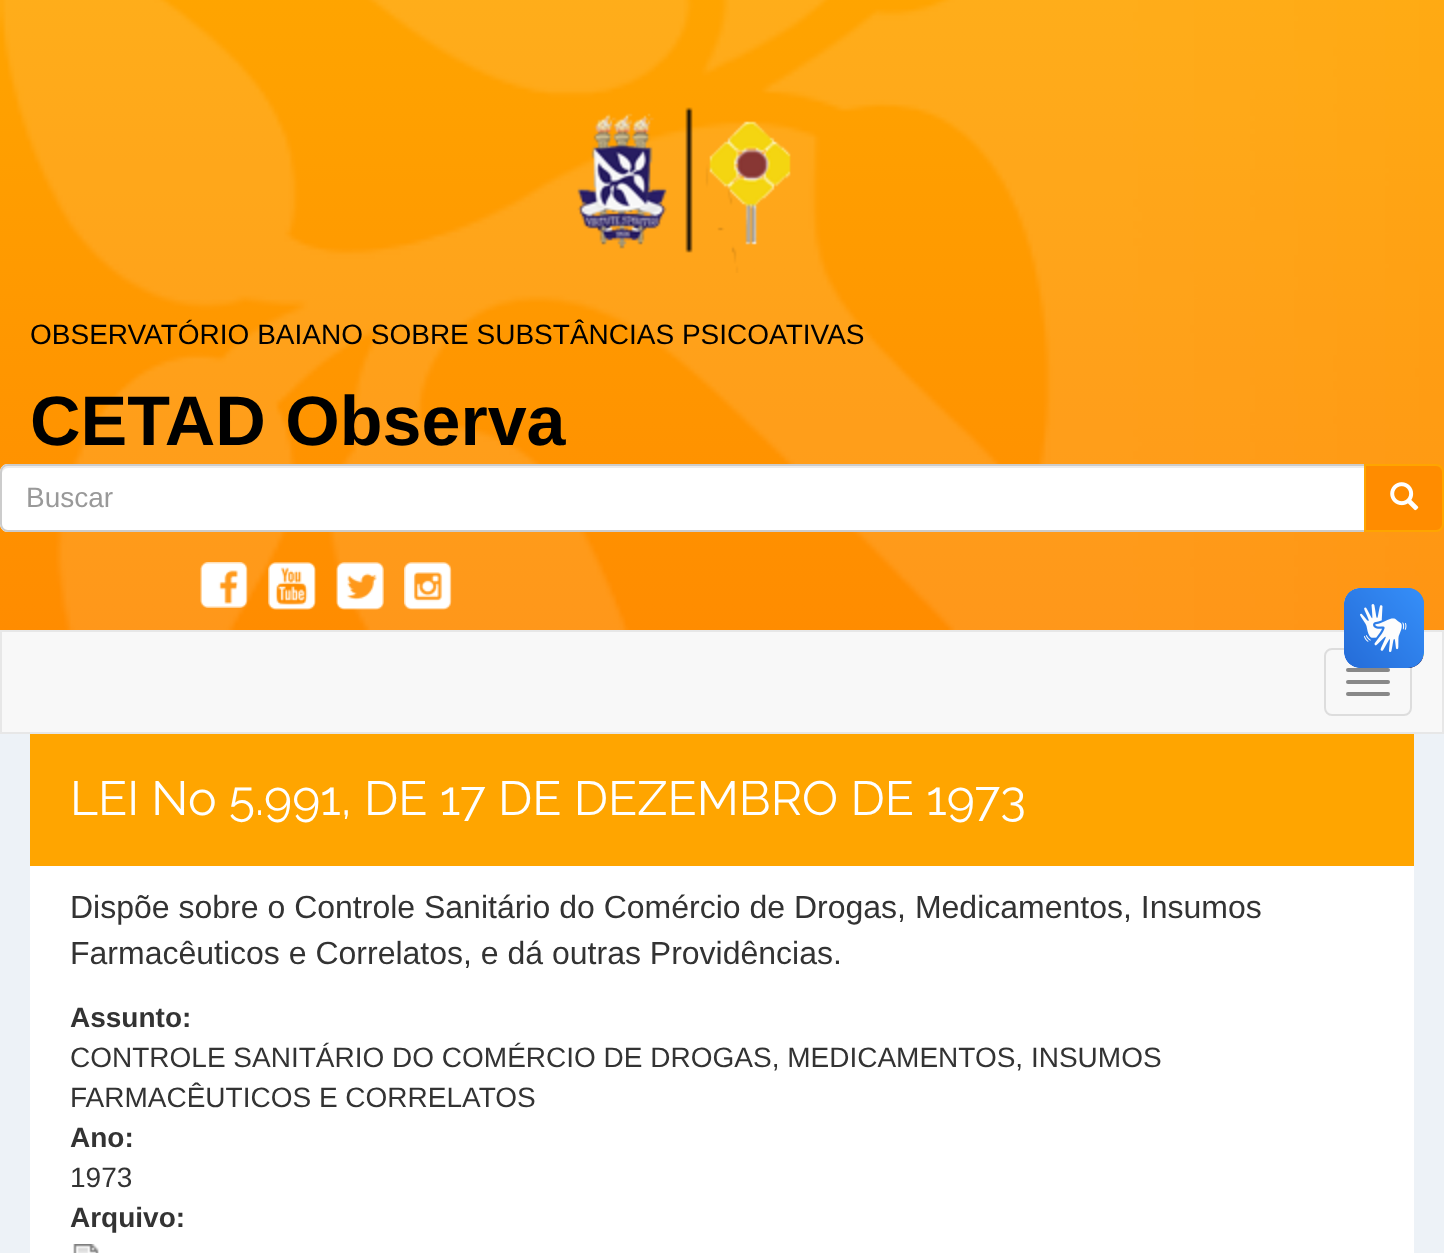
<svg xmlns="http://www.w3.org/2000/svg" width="1444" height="1253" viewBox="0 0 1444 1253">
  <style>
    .t1 { font: 28px Liberation Sans; fill: #000; }
    .t2 { font: bold 70px Liberation Sans; fill: #000; }
    .t3 { font: 28px Liberation Sans; fill: #999; }
    .t4 { font: 48px Raleway; fill: #fff; }
    .t5 { font: 32px Liberation Sans; fill: #333; }
    .t6 { font: bold 28px Liberation Sans; fill: #333; }
    .t7 { font: 28px Liberation Sans; fill: #333; }
  </style>
  <defs>
    <linearGradient id="g1" gradientUnits="userSpaceOnUse" x1="722" y1="-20" x2="722" y2="630"><stop offset="0" stop-color="#ffa500"/><stop offset="1" stop-color="#ff8c00"/></linearGradient>
  </defs>
  <rect width="100%" height="100%" fill="#fff"/>
  <rect x="0" y="0" width="1444" height="630" fill="url(#g1)"/>
  <image x="0" y="0" width="1444" height="630" href="images/1.png"/>
  <image x="577" y="107" width="214" height="166" href="images/2.png"/>
  <text x="30" y="344" class="t1">OBSERVATÓRIO BAIANO SOBRE SUBSTÂNCIAS PSICOATIVAS</text>
  <text x="30" y="445" class="t2">CETAD Observa</text>
  <path d="M8 464H1366V532H8C3.5 532 0 528.5 0 524V472C0 467.5 3.5 464 8 464Z" fill="#fff"/>
  <path d="M8 468H1364V466H8C5 466 2 469 2 472V474C2 471 5 468 8 468Z" fill="#ececec"/>
  <path d="M8 465H1365V531H8C4 531 1 528 1 524V472C1 468 4 465 8 465Z" fill="none" stroke="#ccc" stroke-width="2"/>
  <text x="26" y="507" class="t3">Buscar</text>
  <path d="M1365 465H1436C1440 465 1443 468 1443 472V524C1443 528 1440 531 1436 531H1365Z" fill="#ff8c00" stroke="#ffa500" stroke-width="2"/>
  <image x="1390" y="482" width="29" height="29" href="images/3.png"/>
  <image x="200" y="562" width="48" height="46" href="images/4.png"/>
  <image x="268" y="562" width="48" height="48" href="images/5.png"/>
  <image x="336" y="562" width="48" height="48" href="images/6.png"/>
  <image x="404" y="562" width="48" height="48" href="images/7.png"/>
  <rect x="1" y="631" width="1442" height="102" fill="#f8f8f8" stroke="#e7e7e7" stroke-width="2"/>
  <rect x="1325" y="649" width="86" height="66" rx="7" fill="none" stroke="#ddd" stroke-width="2"/>
  <image x="1344" y="588" width="80" height="80" href="images/8.png"/>
  <image x="1344" y="588" width="80" height="80" href="images/9.png"/>
  <rect x="1346" y="668" width="44" height="4" rx="2" fill="#888"/>
  <rect x="1346" y="680" width="44" height="4" rx="2" fill="#888"/>
  <rect x="1346" y="692" width="44" height="4" rx="2" fill="#888"/>
  <rect x="0" y="734" width="1444" height="519" fill="#edf2f7"/>
  <rect x="30" y="734" width="1384" height="132" fill="#ffa500"/>
  <text x="70" y="815" class="t4">LEI No 5.991, DE 17 DE DEZEMBRO DE 1973</text>
  <rect x="30" y="866" width="1384" height="387" fill="#fff"/>
  <text x="70" y="918" class="t5">Dispõe sobre o Controle Sanitário do Comércio de Drogas, Medicamentos, Insumos</text>
  <text x="70" y="964" class="t5">Farmacêuticos e Correlatos, e dá outras Providências.</text>
  <text x="70" y="1027" class="t6">Assunto:</text>
  <text x="70" y="1067" class="t7">CONTROLE SANITÁRIO DO COMÉRCIO DE DROGAS, MEDICAMENTOS, INSUMOS</text>
  <text x="70" y="1107" class="t7">FARMACÊUTICOS E CORRELATOS</text>
  <text x="70" y="1147" class="t6">Ano:</text>
  <text x="70" y="1187" class="t7">1973</text>
  <text x="70" y="1227" class="t6">Arquivo:</text>
  <image x="73" y="1244" width="26" height="9" href="images/10.png"/>
</svg>
